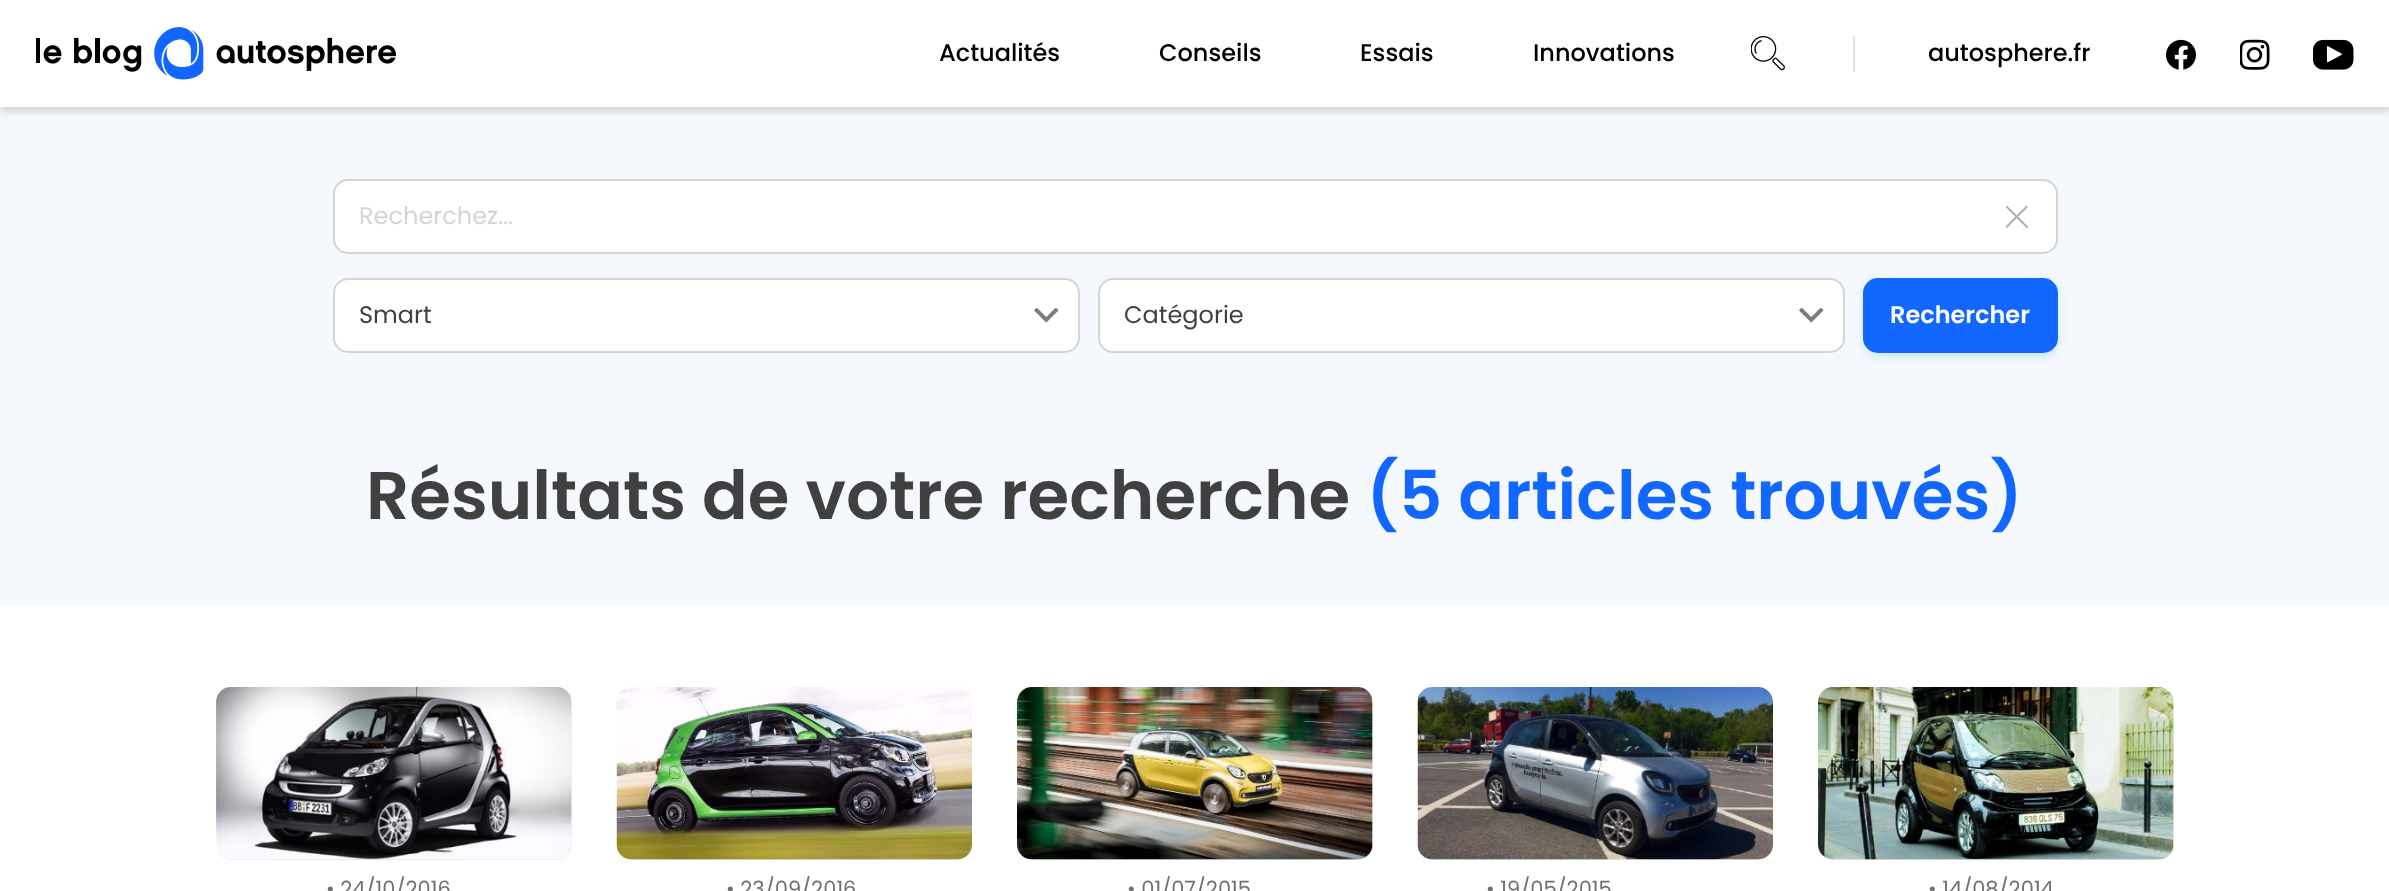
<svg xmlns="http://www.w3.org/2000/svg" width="2389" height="891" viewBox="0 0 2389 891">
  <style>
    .t1 { font: 500 24px Poppins; fill: #000; }
    .t2 { font: 24px Poppins; fill: #d4d4d4; }
    .t3 { font: 24px Poppins; fill: #404040; }
    .t4 { font: 600 24px Poppins; fill: #fff; }
    .t5 { font: 600 67.5px Poppins; fill: #404040; }
    .t6 { font: 600 67.5px Poppins; fill: #1167ff; }
    .t7 { font: 21px Poppins; fill: #707070; }
  </style>
  <defs>
    <clipPath id="clip1"><rect x="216" y="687" width="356" height="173" rx="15"/></clipPath>
    <clipPath id="clip2"><rect x="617" y="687" width="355" height="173" rx="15"/></clipPath>
    <clipPath id="clip3"><rect x="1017" y="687" width="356" height="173" rx="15"/></clipPath>
    <clipPath id="clip4"><rect x="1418" y="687" width="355" height="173" rx="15"/></clipPath>
    <clipPath id="clip5"><rect x="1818" y="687" width="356" height="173" rx="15"/></clipPath>
  </defs>
  <rect width="100%" height="100%" fill="#fff"/>
  <rect x="0" y="107" width="2389" height="498" fill="#f5f8fd"/>
  <rect x="0" y="5" width="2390" height="106" fill="#00000029" filter="blur(4.5px)"/>
  <rect x="0" y="0" width="2389" height="107" fill="#fff"/>
  <image x="36" y="27" width="360" height="53" href="images/1.png"/>
  <text x="939" y="61" class="t1">Actualités</text>
  <text x="1159" y="61" class="t1">Conseils</text>
  <text x="1360" y="61" class="t1">Essais</text>
  <text x="1533" y="61" class="t1">Innovations</text>
  <image x="1751" y="36" width="34" height="35" href="images/2.png"/>
  <rect x="1853" y="36" width="2" height="36" fill="#e3e3e3"/>
  <text x="1928" y="61" class="t1">autosphere.fr</text>
  <image x="2166" y="39" width="30" height="31" href="images/3.png"/>
  <image x="2240" y="39" width="30" height="31" href="images/4.png"/>
  <image x="2313" y="39" width="41" height="31" href="images/5.png"/>
  <rect x="334" y="180" width="1723" height="73" rx="14" fill="#fff" stroke="#d4d4d4" stroke-width="2"/>
  <text x="359" y="224" class="t2">Recherchez...</text>
  <image x="2006" y="206" width="22" height="22" href="images/6.png"/>
  <rect x="334" y="279" width="745" height="73" rx="14" fill="#fff" stroke="#d4d4d4" stroke-width="2"/>
  <text x="359" y="323" class="t3">Smart</text>
  <image x="1034" y="308" width="25" height="15" href="images/7.png"/>
  <rect x="1099" y="279" width="745" height="73" rx="14" fill="#fff" stroke="#d4d4d4" stroke-width="2"/>
  <text x="1124" y="323" class="t3">Catégorie</text>
  <image x="1799" y="308" width="25" height="15" href="images/7.png"/>
  <rect x="1863" y="282" width="195" height="75" rx="15" fill="#28b8fc33" filter="blur(4.5px)"/>
  <rect x="1863" y="278" width="195" height="75" rx="15" fill="#1167ff"/>
  <text x="1890" y="323" class="t4">Rechercher</text>
  <text x="366" y="519" class="t5">Résultats de votre recherche</text>
  <text x="1366" y="519" class="t6">(5 articles trouvés)</text>
  <g clip-path="url(#clip1)">
    <rect x="216" y="692" width="356" height="172" fill="#00000029" filter="blur(15px)"/>
  </g>
  <image x="216" y="687" width="356" height="173" href="images/8.png"/>
  <text x="326" y="896" class="t7">• 24/10/2016</text>
  <g clip-path="url(#clip2)">
    <rect x="617" y="692" width="355" height="172" fill="#00000029" filter="blur(15px)"/>
  </g>
  <image x="616" y="687" width="356" height="173" href="images/9.png"/>
  <text x="726" y="896" class="t7">• 23/09/2016</text>
  <g clip-path="url(#clip3)">
    <rect x="1017" y="692" width="356" height="172" fill="#00000029" filter="blur(15px)"/>
  </g>
  <image x="1017" y="687" width="356" height="173" href="images/10.png"/>
  <text x="1127" y="896" class="t7">• 01/07/2015</text>
  <g clip-path="url(#clip4)">
    <rect x="1418" y="692" width="355" height="172" fill="#00000029" filter="blur(15px)"/>
  </g>
  <image x="1417" y="687" width="356" height="173" href="images/11.png"/>
  <text x="1486" y="896" class="t7">• 19/05/2015</text>
  <g clip-path="url(#clip5)">
    <rect x="1818" y="692" width="356" height="172" fill="#00000029" filter="blur(15px)"/>
  </g>
  <image x="1818" y="687" width="356" height="173" href="images/12.png"/>
  <text x="1928" y="896" class="t7">• 14/08/2014</text>
</svg>
